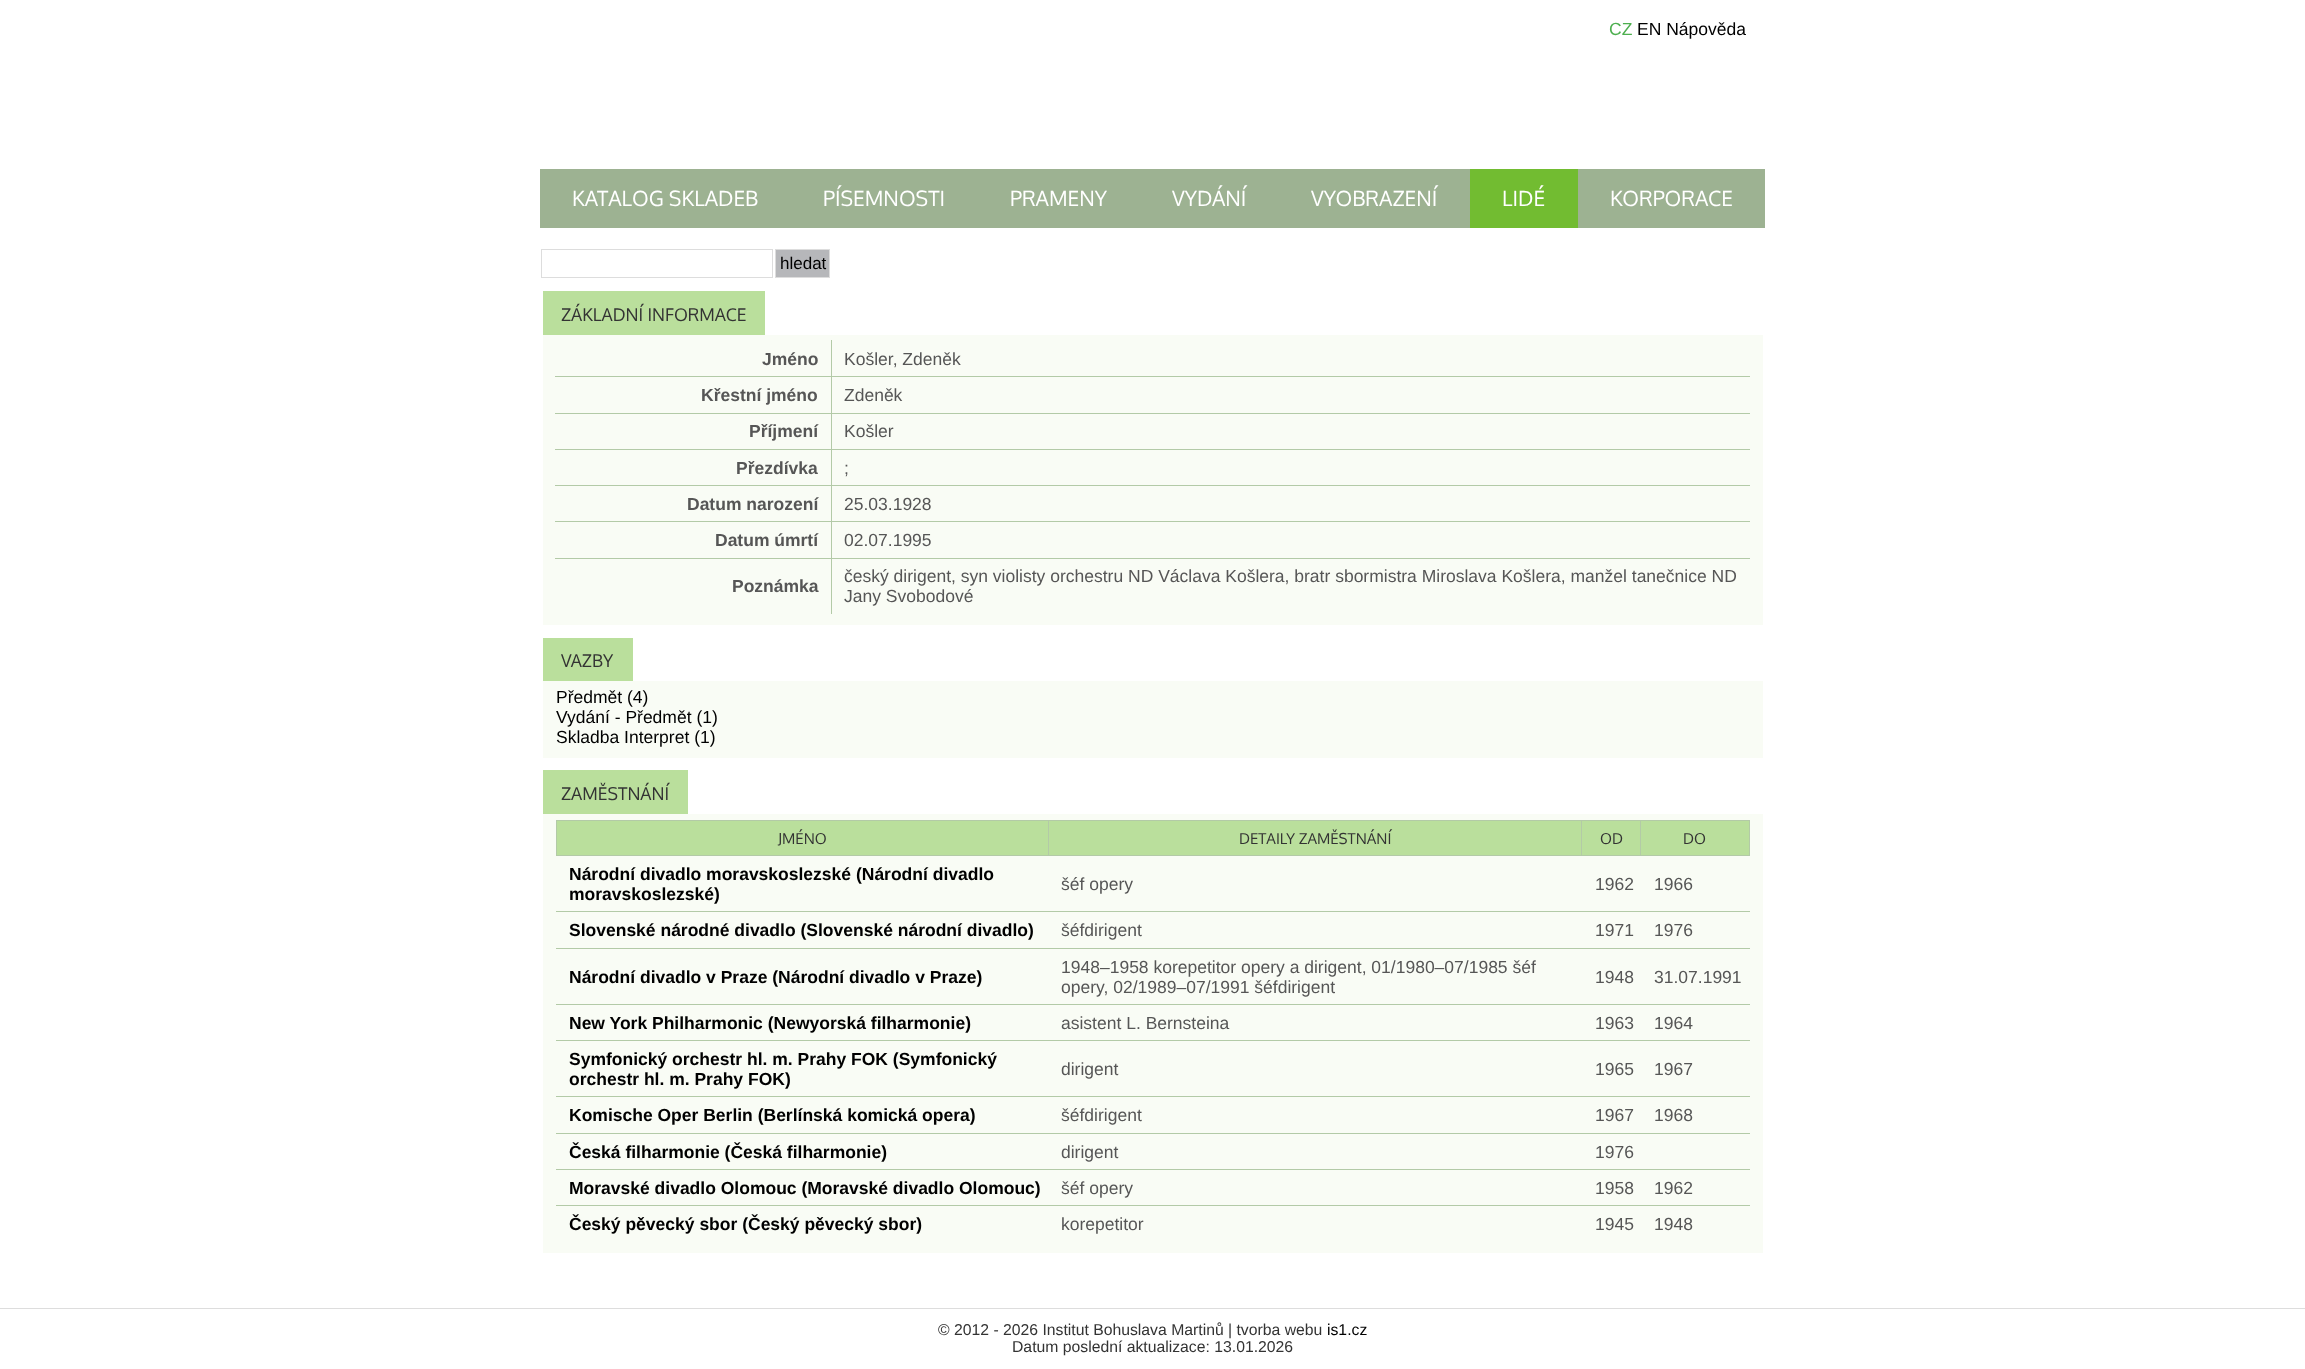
<svg xmlns="http://www.w3.org/2000/svg" width="2305" height="1369" viewBox="0 0 2305 1369">
  <style>
    .t1 { font: 17.5px Liberation Sans; fill: #4daf4f; }
    .t2 { font: 17.5px Liberation Sans; fill: #000; }
    .t3 { font: 21px Oxygen; fill: #fff; }
    .t4 { font: 17px Liberation Sans; fill: #000; }
    .t5 { font: 17.5px Oxygen; fill: #333; }
    .t6 { font: bold 17.5px Liberation Sans; fill: #565656; }
    .t7 { font: 17.5px Liberation Sans; fill: #565656; }
    .t8 { font: 15px Oxygen; fill: #333; }
    .t9 { font: bold 17.5px Liberation Sans; fill: #000; }
    .t10 { font: 15.75px Liberation Sans; fill: #333; }
    .t11 { font: 15.75px Liberation Sans; fill: #000; }
  </style>
  <rect width="100%" height="100%" fill="#fff"/>
  <text x="1609" y="35" class="t1">CZ</text>
  <text x="1637" y="35" class="t2">EN Nápověda</text>
  <rect x="540" y="169" width="930" height="59" fill="#9db292"/>
  <text x="572" y="206" class="t3">KATALOG SKLADEB</text>
  <text x="823" y="206" class="t3">PÍSEMNOSTI</text>
  <text x="1010" y="206" class="t3">PRAMENY</text>
  <text x="1172" y="206" class="t3">VYDÁNÍ</text>
  <text x="1311" y="206" class="t3">VYOBRAZENÍ</text>
  <rect x="1470" y="169" width="108" height="59" fill="#72bc31"/>
  <text x="1502" y="206" class="t3">LIDÉ</text>
  <rect x="1578" y="169" width="187" height="59" fill="#9db292"/>
  <text x="1610" y="206" class="t3">KORPORACE</text>
  <rect x="541.5" y="249.5" width="231" height="28" fill="none" stroke="#ddd"/>
  <rect x="775.5" y="249.5" width="54" height="28" fill="#b6b7ba" stroke="#ddd"/>
  <text x="780" y="269" class="t4">hledat</text>
  <rect x="543" y="335" width="1220" height="290" fill="#f9fcf5"/>
  <rect x="543" y="291" width="222" height="44" fill="#badf9c"/>
  <text x="561" y="321" class="t5">ZÁKLADNÍ INFORMACE</text>
  <rect x="831" y="558" width="1" height="56" fill="#b3caa7"/>
  <rect x="831" y="558" width="919" height="1" fill="#b3caa7"/>
  <rect x="831" y="521" width="1" height="38" fill="#b3caa7"/>
  <rect x="831" y="521" width="919" height="1" fill="#b3caa7"/>
  <rect x="831" y="485" width="1" height="38" fill="#b3caa7"/>
  <rect x="831" y="485" width="919" height="1" fill="#b3caa7"/>
  <rect x="831" y="449" width="1" height="37" fill="#b3caa7"/>
  <rect x="831" y="449" width="919" height="1" fill="#b3caa7"/>
  <rect x="831" y="413" width="1" height="37" fill="#b3caa7"/>
  <rect x="831" y="413" width="919" height="1" fill="#b3caa7"/>
  <rect x="831" y="376" width="1" height="38" fill="#b3caa7"/>
  <rect x="831" y="376" width="919" height="1" fill="#b3caa7"/>
  <rect x="831" y="340" width="1" height="38" fill="#b3caa7"/>
  <rect x="555" y="376" width="278" height="1" fill="#b3caa7"/>
  <text x="762" y="365" class="t6">Jméno</text>
  <text x="844" y="365" class="t7">Košler, Zdeněk</text>
  <rect x="555" y="413" width="278" height="1" fill="#b3caa7"/>
  <text x="701" y="401" class="t6">Křestní jméno</text>
  <text x="844" y="401" class="t7">Zdeněk</text>
  <rect x="555" y="449" width="278" height="1" fill="#b3caa7"/>
  <text x="749" y="437" class="t6">Příjmení</text>
  <text x="844" y="437" class="t7">Košler</text>
  <rect x="555" y="485" width="278" height="1" fill="#b3caa7"/>
  <text x="736" y="474" class="t6">Přezdívka</text>
  <text x="844" y="474" class="t7">;</text>
  <rect x="555" y="521" width="278" height="1" fill="#b3caa7"/>
  <text x="687" y="510" class="t6">Datum narození</text>
  <text x="844" y="510" class="t7">25.03.1928</text>
  <rect x="555" y="558" width="278" height="1" fill="#b3caa7"/>
  <text x="715" y="546" class="t6">Datum úmrtí</text>
  <text x="844" y="546" class="t7">02.07.1995</text>
  <text x="732" y="592" class="t6">Poznámka</text>
  <text x="844" y="582" class="t7">český dirigent, syn violisty orchestru ND Václava Košlera, bratr sbormistra Miroslava Košlera, manžel tanečnice ND</text>
  <text x="844" y="602" class="t7">Jany Svobodové</text>
  <rect x="543" y="681" width="1220" height="77" fill="#f9fcf5"/>
  <rect x="543" y="638" width="90" height="43" fill="#badf9c"/>
  <text x="561" y="667" class="t5">VAZBY</text>
  <text x="556" y="703" class="t2">Předmět (4)</text>
  <text x="556" y="723" class="t2">Vydání - Předmět (1)</text>
  <text x="556" y="743" class="t2">Skladba Interpret (1)</text>
  <rect x="543" y="814" width="1220" height="439" fill="#f9fcf5"/>
  <rect x="543" y="770" width="145" height="44" fill="#badf9c"/>
  <text x="561" y="800" class="t5">ZAMĚSTNÁNÍ</text>
  <rect x="557" y="821" width="491" height="34" fill="#badf9c"/>
  <rect x="1640" y="820" width="110" height="1" fill="#b3caa7"/>
  <rect x="1749" y="820" width="1" height="36" fill="#b3caa7"/>
  <rect x="1640" y="855" width="110" height="1" fill="#b3caa7"/>
  <rect x="1640" y="820" width="1" height="36" fill="#b3caa7"/>
  <rect x="1581" y="820" width="60" height="1" fill="#b3caa7"/>
  <rect x="1049" y="821" width="591" height="34" fill="#badf9c"/>
  <rect x="1581" y="855" width="60" height="1" fill="#b3caa7"/>
  <rect x="1581" y="820" width="1" height="36" fill="#b3caa7"/>
  <rect x="1048" y="820" width="535" height="1" fill="#b3caa7"/>
  <rect x="1048" y="855" width="535" height="1" fill="#b3caa7"/>
  <rect x="1048" y="820" width="1" height="36" fill="#b3caa7"/>
  <rect x="556" y="820" width="493" height="1" fill="#b3caa7"/>
  <rect x="556" y="855" width="493" height="1" fill="#b3caa7"/>
  <rect x="556" y="820" width="1" height="36" fill="#b3caa7"/>
  <text x="778" y="844" class="t8">JMÉNO</text>
  <text x="1239" y="844" class="t8">DETAILY ZAMĚSTNÁNÍ</text>
  <text x="1600" y="844" class="t8">OD</text>
  <rect x="1641" y="821" width="108" height="34" fill="#badf9c"/>
  <text x="1683" y="844" class="t8">DO</text>
  <text x="569" y="880" class="t9">Národní divadlo moravskoslezské (Národní divadlo</text>
  <text x="569" y="900" class="t9">moravskoslezské)</text>
  <text x="1061" y="890" class="t7">šéf opery</text>
  <text x="1595" y="890" class="t7">1962</text>
  <rect x="556" y="911" width="1194" height="1" fill="#b3caa7"/>
  <text x="1654" y="890" class="t7">1966</text>
  <text x="569" y="936" class="t9">Slovenské národné divadlo (Slovenské národní divadlo)</text>
  <text x="1061" y="936" class="t7">šéfdirigent</text>
  <text x="1595" y="936" class="t7">1971</text>
  <rect x="556" y="948" width="1194" height="1" fill="#b3caa7"/>
  <text x="1654" y="936" class="t7">1976</text>
  <text x="569" y="983" class="t9">Národní divadlo v Praze (Národní divadlo v Praze)</text>
  <text x="1061" y="973" class="t7">1948–1958 korepetitor opery a dirigent, 01/1980–07/1985 šéf</text>
  <text x="1061" y="993" class="t7">opery, 02/1989–07/1991 šéfdirigent</text>
  <text x="1595" y="983" class="t7">1948</text>
  <rect x="556" y="1004" width="1194" height="1" fill="#b3caa7"/>
  <text x="1654" y="983" class="t7">31.07.1991</text>
  <text x="569" y="1029" class="t9">New York Philharmonic (Newyorská filharmonie)</text>
  <text x="1061" y="1029" class="t7">asistent L. Bernsteina</text>
  <text x="1595" y="1029" class="t7">1963</text>
  <rect x="556" y="1040" width="1194" height="1" fill="#b3caa7"/>
  <text x="1654" y="1029" class="t7">1964</text>
  <text x="569" y="1065" class="t9">Symfonický orchestr hl. m. Prahy FOK (Symfonický</text>
  <text x="569" y="1085" class="t9">orchestr hl. m. Prahy FOK)</text>
  <text x="1061" y="1075" class="t7">dirigent</text>
  <text x="1595" y="1075" class="t7">1965</text>
  <rect x="556" y="1096" width="1194" height="1" fill="#b3caa7"/>
  <text x="1654" y="1075" class="t7">1967</text>
  <text x="569" y="1121" class="t9">Komische Oper Berlin (Berlínská komická opera)</text>
  <text x="1061" y="1121" class="t7">šéfdirigent</text>
  <text x="1595" y="1121" class="t7">1967</text>
  <rect x="556" y="1133" width="1194" height="1" fill="#b3caa7"/>
  <text x="1654" y="1121" class="t7">1968</text>
  <text x="569" y="1158" class="t9">Česká filharmonie (Česká filharmonie)</text>
  <text x="1061" y="1158" class="t7">dirigent</text>
  <text x="1595" y="1158" class="t7">1976</text>
  <rect x="556" y="1169" width="1194" height="1" fill="#b3caa7"/>
  <text x="569" y="1194" class="t9">Moravské divadlo Olomouc (Moravské divadlo Olomouc)</text>
  <text x="1061" y="1194" class="t7">šéf opery</text>
  <text x="1595" y="1194" class="t7">1958</text>
  <rect x="556" y="1205" width="1194" height="1" fill="#b3caa7"/>
  <text x="1654" y="1194" class="t7">1962</text>
  <text x="569" y="1230" class="t9">Český pěvecký sbor (Český pěvecký sbor)</text>
  <text x="1061" y="1230" class="t7">korepetitor</text>
  <text x="1595" y="1230" class="t7">1945</text>
  <text x="1654" y="1230" class="t7">1948</text>
  <rect x="0" y="1308" width="2305" height="1" fill="#ddd"/>
  <text x="938" y="1335" class="t10">© 2012 - 2026 Institut Bohuslava Martinů | tvorba webu</text>
  <text x="1327" y="1335" class="t11">is1.cz</text>
  <text x="1012" y="1352" class="t10">Datum poslední aktualizace: 13.01.2026</text>
</svg>
